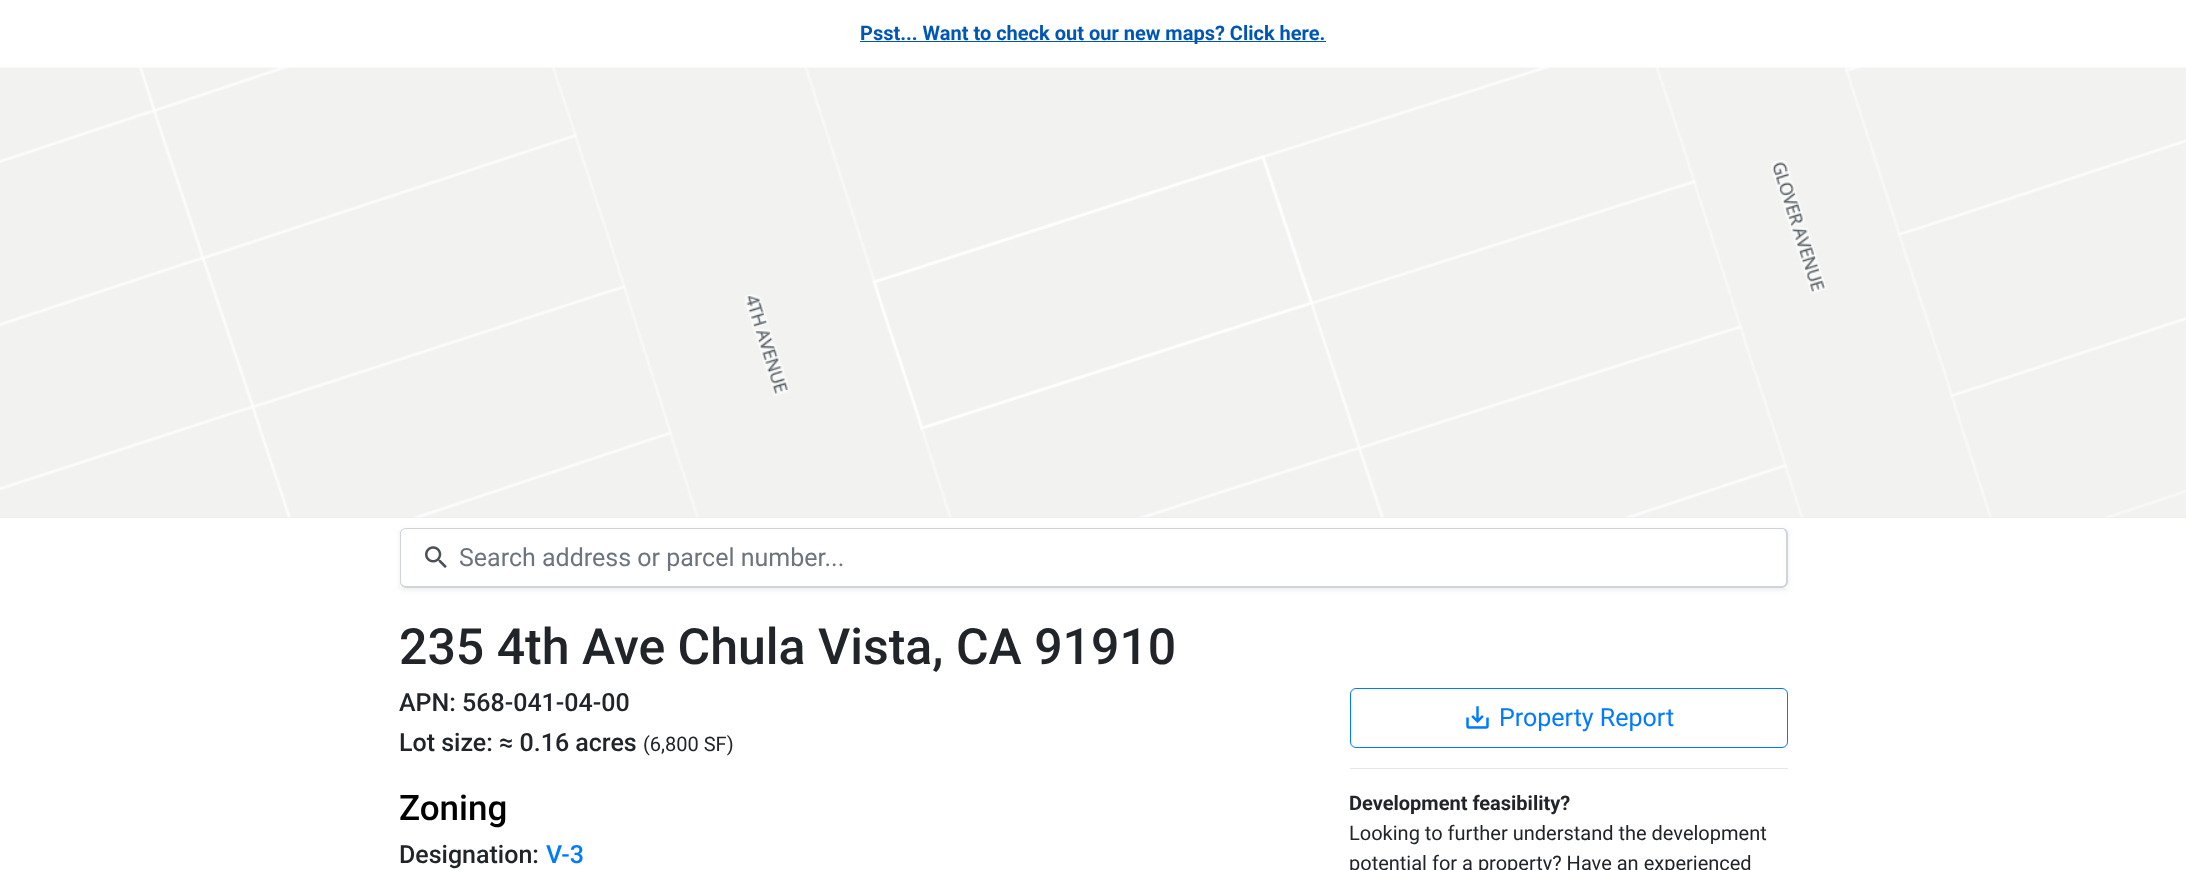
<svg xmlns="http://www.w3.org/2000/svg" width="2186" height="870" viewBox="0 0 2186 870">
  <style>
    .t1 { font: bold 20px Roboto; fill: #0056b3; }
    .t2 { font: 25px Roboto; fill: #6c757d; }
    .t3 { font: 500 50px Roboto; fill: #212529; }
    .t4 { font: 500 25px Roboto; fill: #212529; }
    .t5 { font: 20px Roboto; fill: #212529; }
    .t6 { font: 500 35px Roboto; fill: #000; }
    .t7 { font: 500 25px Roboto; fill: #007bff; }
    .t8 { font: 25px Roboto; fill: #007bff; }
    .t9 { font: bold 20px Roboto; fill: #212529; }
  </style>
  <defs>
    <clipPath id="clip1"><path d="M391 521H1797V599H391ZM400 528H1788V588H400Z" clip-rule="evenodd"/></clipPath>
  </defs>
  <rect width="100%" height="100%" fill="#fff"/>
  <rect x="860" y="41" width="466" height="1" fill="#0056b3"/>
  <text x="860" y="40" class="t1">Psst... Want to check out our new maps? Click here.</text>
  <rect x="0" y="517" width="2186" height="1" fill="#eaeaea"/>
  <image x="0" y="67" width="2186" height="451" href="images/1.png"/>
  <g clip-path="url(#clip1)">
    <rect x="400" y="530" width="1388" height="60" fill="#00000012" filter="blur(2.5px)"/>
  </g>
  <path d="M406 528H451V588H406C402.5 588 400 585.5 400 582V534C400 530.5 402.5 528 406 528Z" fill="#fff"/>
  <path d="M406 528H451V588H406C403 588 400 585 400 582V534C400 530 403 528 406 528ZM406 529H451V586H406C403 586 401 584 401 582V534C401 531 403 529 406 529Z" fill="#ced4da" fill-rule="evenodd"/>
  <image x="425" y="546" width="22" height="22" href="images/2.png"/>
  <path d="M450 528H1782C1785 528 1788 530 1788 534V582C1788 585 1785 588 1782 588H450ZM450 529H1782C1784 529 1786 531 1786 534V582C1786 584 1784 586 1782 586H450Z" fill="#ced4da" fill-rule="evenodd"/>
  <text x="459" y="566" class="t2">Search address or parcel number...</text>
  <text x="399" y="664" class="t3">235 4th Ave Chula Vista, CA 91910</text>
  <text x="399" y="711" class="t4">APN: 568-041-04-00</text>
  <text x="399" y="751" class="t4">Lot size: ≈ 0.16 acres</text>
  <text x="643" y="751" class="t5">(6,800 SF)</text>
  <text x="399" y="820" class="t6">Zoning</text>
  <text x="399" y="863" class="t4">Designation:</text>
  <text x="546" y="863" class="t7">V-3</text>
  <rect x="1350.5" y="688.5" width="437" height="59" rx="5.5" fill="none" stroke="#007bff"/>
  <image x="1466" y="706" width="23" height="23" href="images/3.png"/>
  <text x="1499" y="726" class="t8">Property Report</text>
  <rect x="1350" y="768" width="438" height="1" fill="#e6e6e6"/>
  <text x="1349" y="810" class="t9">Development feasibility?</text>
  <text x="1349" y="840" class="t5">Looking to further understand the development</text>
  <text x="1349" y="870" class="t5">potential for a property? Have an experienced</text>
</svg>
